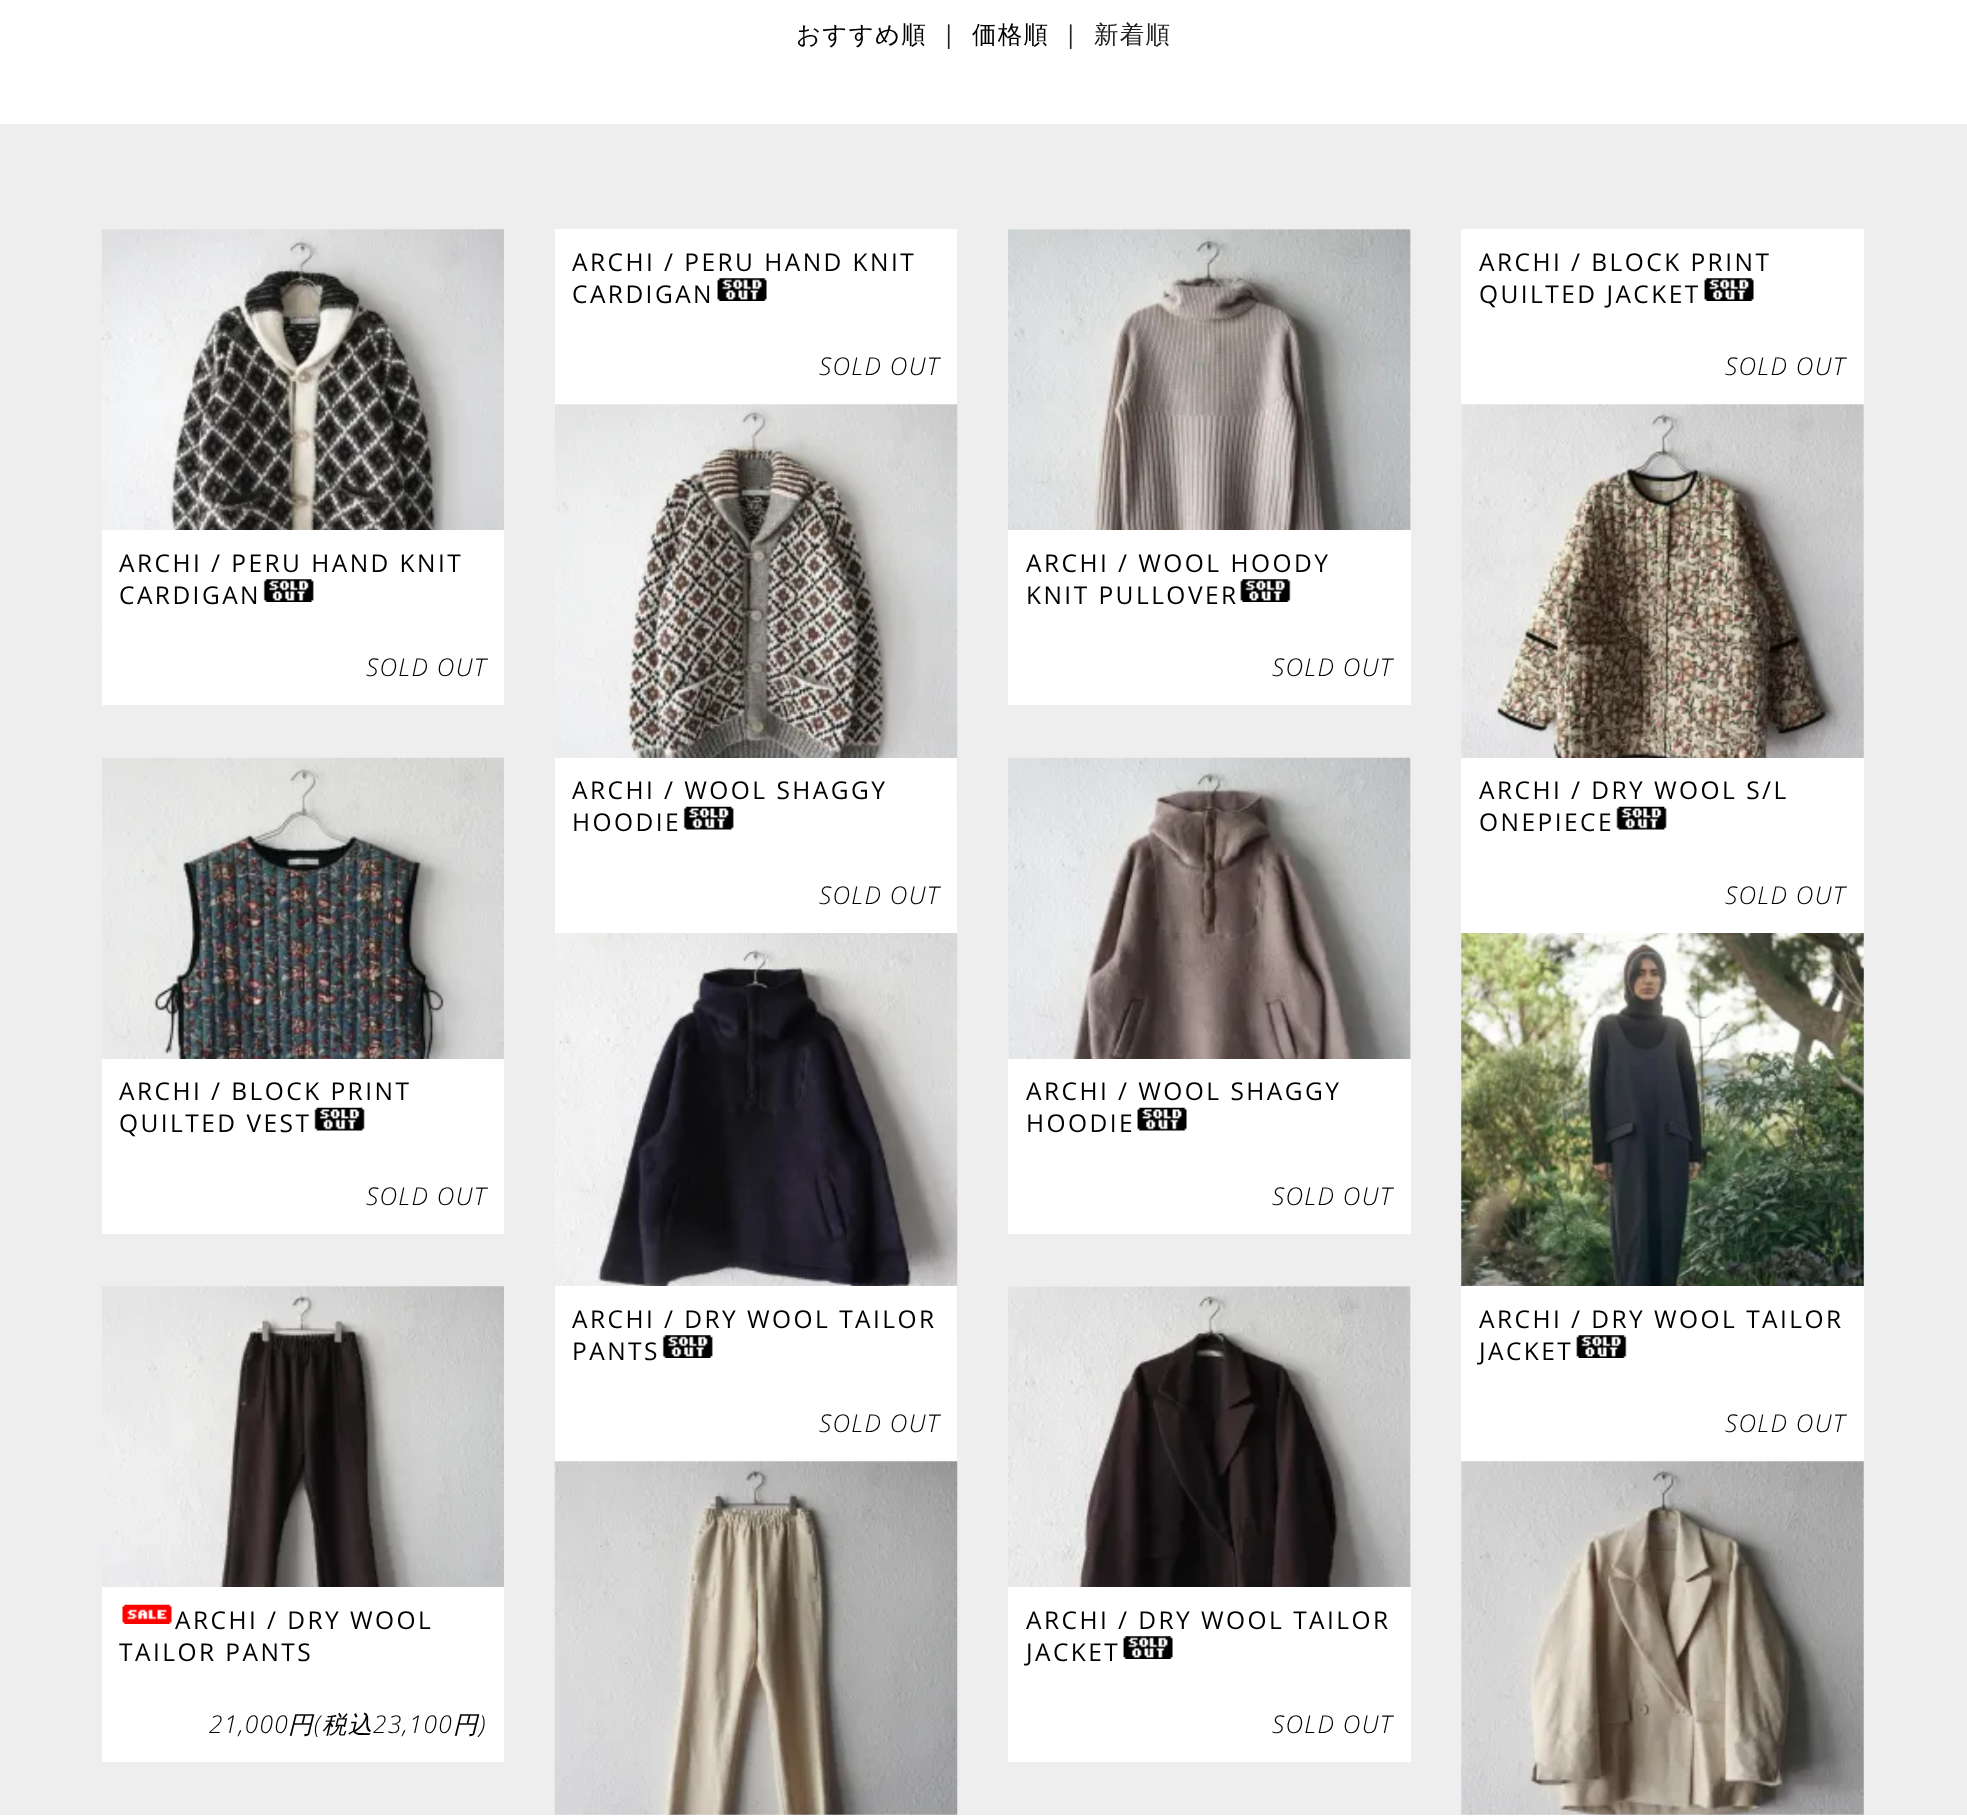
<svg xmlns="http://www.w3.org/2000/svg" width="1967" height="1819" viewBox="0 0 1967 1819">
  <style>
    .t1 { font: 500 24.5px WenQuanYi Zen Hei; letter-spacing: 1.25px; fill: #000; }
    .t2 { font: 24.5px Open Sans; letter-spacing: 1.25px; fill: #212121; }
    .t3 { font: 500 24.5px WenQuanYi Zen Hei; letter-spacing: 1.25px; fill: #212121; }
    .t4 { font: 24.5px Open Sans; letter-spacing: 2.45px; fill: #000; }
    .t5 { font: italic 300 24.5px Open Sans; letter-spacing: 1.25px; fill: #000; }
    .t6 { font: italic 500 24.5px WenQuanYi Zen Hei; letter-spacing: 1.25px; fill: #000; }
  </style>
  <rect width="100%" height="100%" fill="#fff"/>
  <text x="796" y="43" class="t1">おすすめ順</text>
  <text x="942" y="43" class="t2">|</text>
  <text x="972" y="43" class="t1">価格順</text>
  <text x="1064" y="43" class="t2">|</text>
  <text x="1094" y="43" class="t3">新着順</text>
  <rect x="0" y="124" width="1967" height="1691" fill="#eee"/>
  <rect x="555" y="229" width="402" height="176" fill="#fff"/>
  <text x="572" y="271" class="t4">ARCHI / PERU HAND KNIT</text>
  <text x="572" y="303" class="t4">CARDIGAN</text>
  <image x="717" y="278" width="50" height="23" href="images/1.png"/>
  <text x="819" y="375" class="t5">SOLD OUT</text>
  <image x="555" y="404" width="403" height="403" href="images/2.png"/>
  <rect x="1461" y="229" width="403" height="476" fill="#fff"/>
  <text x="1479" y="271" class="t4">ARCHI / BLOCK PRINT</text>
  <text x="1479" y="303" class="t4">QUILTED JACKET</text>
  <image x="1704" y="278" width="50" height="23" href="images/1.png"/>
  <text x="1725" y="375" class="t5">SOLD OUT</text>
  <image x="1461" y="404" width="403" height="354" href="images/3.png"/>
  <image x="101" y="229" width="403" height="403" href="images/4.png"/>
  <rect x="102" y="530" width="402" height="175" fill="#fff"/>
  <text x="119" y="572" class="t4">ARCHI / PERU HAND KNIT</text>
  <text x="119" y="604" class="t4">CARDIGAN</text>
  <image x="263" y="579" width="51" height="23" href="images/5.png"/>
  <text x="366" y="676" class="t5">SOLD OUT</text>
  <rect x="1008" y="229" width="403" height="476" fill="#fff"/>
  <image x="1008" y="229" width="403" height="301" href="images/6.png"/>
  <text x="1026" y="572" class="t4">ARCHI / WOOL HOODY</text>
  <text x="1026" y="604" class="t4">KNIT PULLOVER</text>
  <image x="1240" y="579" width="51" height="23" href="images/7.png"/>
  <text x="1272" y="676" class="t5">SOLD OUT</text>
  <image x="555" y="932" width="403" height="404" href="images/9.png"/>
  <rect x="555" y="758" width="402" height="175" fill="#fff"/>
  <text x="572" y="799" class="t4">ARCHI / WOOL SHAGGY</text>
  <text x="572" y="831" class="t4">HOODIE</text>
  <image x="683" y="806" width="51" height="24" href="images/8.png"/>
  <text x="819" y="904" class="t5">SOLD OUT</text>
  <rect x="1461" y="758" width="403" height="175" fill="#fff"/>
  <text x="1479" y="799" class="t4">ARCHI / DRY WOOL S/L</text>
  <text x="1479" y="831" class="t4">ONEPIECE</text>
  <image x="1616" y="806" width="51" height="24" href="images/10.png"/>
  <text x="1725" y="904" class="t5">SOLD OUT</text>
  <image x="1461" y="933" width="403" height="353" href="images/11.png"/>
  <image x="102" y="757" width="402" height="302" href="images/12.png"/>
  <rect x="102" y="1059" width="402" height="175" fill="#fff"/>
  <text x="119" y="1100" class="t4">ARCHI / BLOCK PRINT</text>
  <text x="119" y="1132" class="t4">QUILTED VEST</text>
  <image x="314" y="1107" width="51" height="24" href="images/13.png"/>
  <text x="366" y="1205" class="t5">SOLD OUT</text>
  <rect x="1410" y="758" width="1" height="301" fill="#fff"/>
  <image x="1008" y="757" width="403" height="302" href="images/14.png"/>
  <rect x="1008" y="1059" width="403" height="175" fill="#fff"/>
  <text x="1026" y="1100" class="t4">ARCHI / WOOL SHAGGY</text>
  <text x="1026" y="1132" class="t4">HOODIE</text>
  <image x="1137" y="1107" width="50" height="24" href="images/15.png"/>
  <text x="1272" y="1205" class="t5">SOLD OUT</text>
  <rect x="555" y="1286" width="402" height="176" fill="#fff"/>
  <text x="572" y="1328" class="t4">ARCHI / DRY WOOL TAILOR</text>
  <text x="572" y="1360" class="t4">PANTS</text>
  <image x="662" y="1335" width="51" height="23" href="images/5.png"/>
  <text x="819" y="1432" class="t5">SOLD OUT</text>
  <image x="554" y="1461" width="404" height="354" href="images/16.png"/>
  <rect x="1461" y="1286" width="403" height="476" fill="#fff"/>
  <text x="1479" y="1328" class="t4">ARCHI / DRY WOOL TAILOR</text>
  <text x="1479" y="1360" class="t4">JACKET</text>
  <image x="1576" y="1335" width="51" height="23" href="images/17.png"/>
  <text x="1725" y="1432" class="t5">SOLD OUT</text>
  <image x="1461" y="1461" width="403" height="354" href="images/18.png"/>
  <image x="102" y="1286" width="402" height="301" href="images/19.png"/>
  <rect x="102" y="1587" width="402" height="175" fill="#fff"/>
  <image x="122" y="1604" width="50" height="20" href="images/20.png"/>
  <text x="175" y="1629" class="t4">ARCHI / DRY WOOL</text>
  <text x="119" y="1661" class="t4">TAILOR PANTS</text>
  <text x="209" y="1733" class="t5">21,000</text>
  <text x="288" y="1733" class="t6">円</text>
  <text x="314" y="1733" class="t5">(</text>
  <text x="322" y="1733" class="t6">税込</text>
  <text x="373" y="1733" class="t5">23,100</text>
  <text x="453" y="1733" class="t6">円</text>
  <text x="479" y="1733" class="t5">)</text>
  <rect x="1008" y="1286" width="403" height="476" fill="#fff"/>
  <image x="1008" y="1286" width="403" height="301" href="images/21.png"/>
  <text x="1026" y="1629" class="t4">ARCHI / DRY WOOL TAILOR</text>
  <text x="1026" y="1661" class="t4">JACKET</text>
  <image x="1123" y="1636" width="50" height="23" href="images/1.png"/>
  <text x="1272" y="1733" class="t5">SOLD OUT</text>
</svg>
